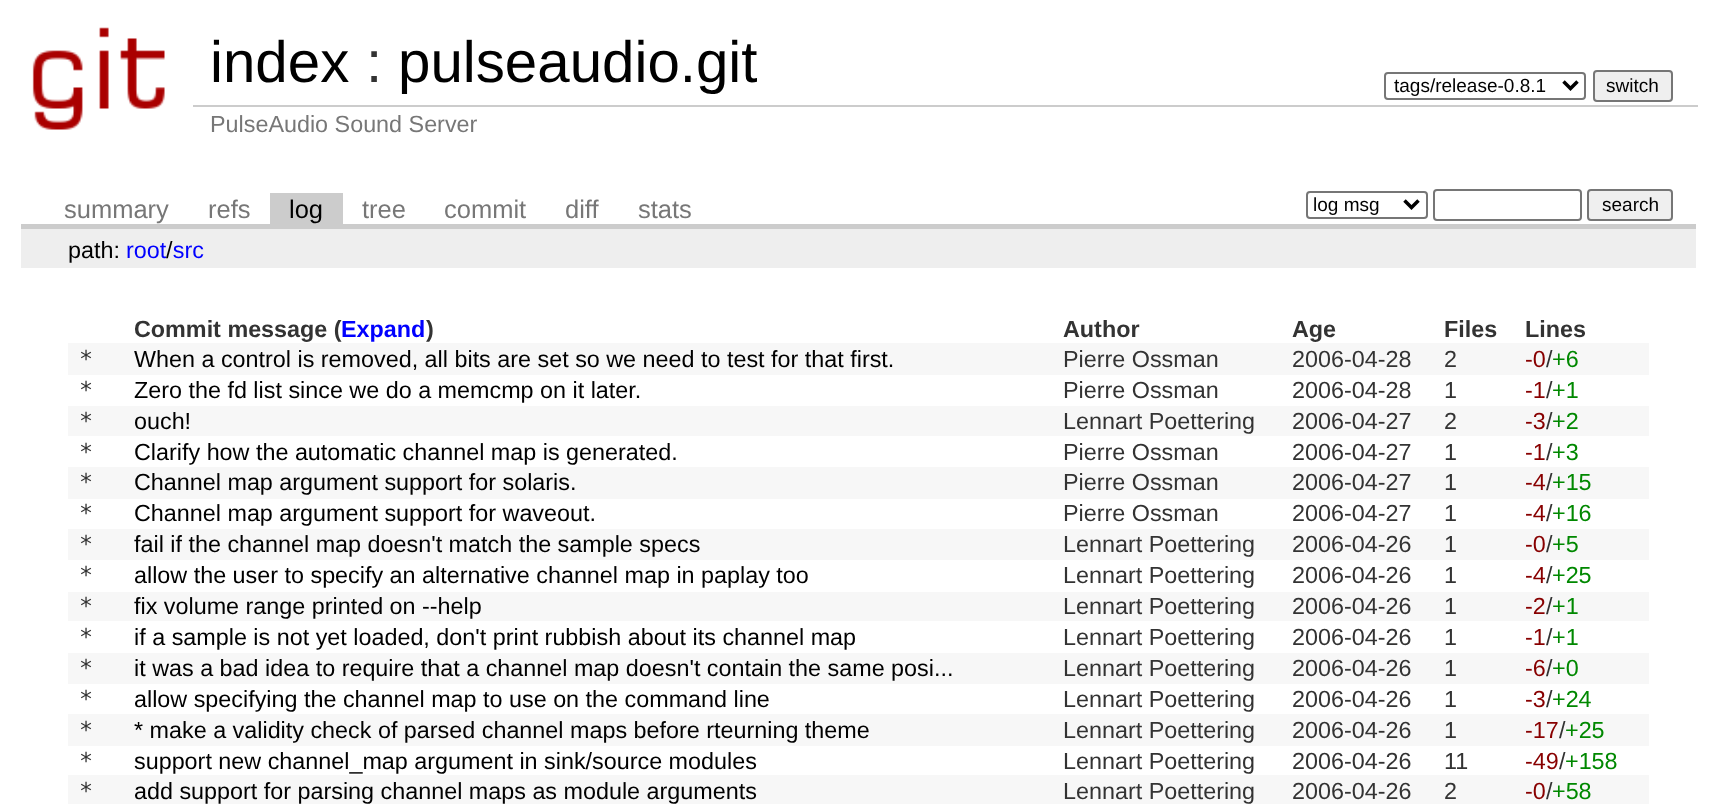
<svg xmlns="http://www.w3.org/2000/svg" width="1716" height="804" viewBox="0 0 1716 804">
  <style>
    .t1 { font: 58.25px Liberation Sans; fill: #000; }
    .t2 { font: 58.25px Liberation Sans; fill: #333; }
    .t3 { font: 19px Liberation Sans; fill: #000; }
    .t4 { font: 23.35px Liberation Sans; fill: #777; }
    .t5 { font: 25.5px Liberation Sans; fill: #777; }
    .t6 { font: 25.5px Liberation Sans; fill: #000; }
    .t7 { font: 23.35px Liberation Sans; fill: #000; }
    .t8 { font: 23.35px Liberation Sans; fill: #00f; }
    .t9 { font: bold 23.35px Liberation Sans; fill: #333; }
    .t10 { font: bold 23.35px Liberation Sans; fill: #00f; }
    .t11 { font: 23.35px DejaVu Sans Mono; fill: #333; }
    .t12 { font: 23.35px Liberation Sans; fill: #333; }
    .t13 { font: 23.35px Liberation Sans; fill: #800; }
    .t14 { font: 23.35px Liberation Sans; fill: #080; }
  </style>
  <rect width="100%" height="100%" fill="#fff"/>
  <image x="32" y="27" width="133" height="103" href="images/1.png"/>
  <text x="210" y="82" class="t1">index</text>
  <text x="366" y="82" class="t2">:</text>
  <text x="398" y="82" class="t1">pulseaudio.git</text>
  <rect x="1385" y="73" width="200" height="26" rx="3" fill="none" stroke="#767676" stroke-width="2"/>
  <path d="M1563.5 81.5L1570.5 88.5L1577.5 81.5" fill="none" stroke="#000" stroke-width="3.5"/>
  <text x="1394" y="92" class="t3">tags/release-0.8.1</text>
  <rect x="1594" y="71" width="78" height="30" rx="3" fill="#efefef" stroke="#767676" stroke-width="2"/>
  <text x="1606" y="92" class="t3">switch</text>
  <rect x="193" y="105" width="1505" height="2" fill="#ccc"/>
  <text x="210" y="132" class="t4">PulseAudio Sound Server</text>
  <rect x="21" y="224" width="1675" height="5" fill="#ccc"/>
  <text x="64" y="218" class="t5">summary</text>
  <text x="208" y="218" class="t5">refs</text>
  <rect x="270" y="193" width="73" height="31" fill="#ccc"/>
  <text x="289" y="218" class="t6">log</text>
  <text x="362" y="218" class="t5">tree</text>
  <text x="444" y="218" class="t5">commit</text>
  <text x="565" y="218" class="t5">diff</text>
  <text x="638" y="218" class="t5">stats</text>
  <rect x="1307" y="192" width="120" height="26" rx="3" fill="none" stroke="#767676" stroke-width="2"/>
  <path d="M1404.5 200.5L1411.5 207.5L1418.5 200.5" fill="none" stroke="#000" stroke-width="3.5"/>
  <text x="1313" y="211" class="t3">log msg</text>
  <rect x="1434" y="190" width="147" height="30" rx="3" fill="none" stroke="#767676" stroke-width="2"/>
  <rect x="1588" y="190" width="84" height="30" rx="3" fill="#efefef" stroke="#767676" stroke-width="2"/>
  <text x="1602" y="211" class="t3">search</text>
  <rect x="21" y="229" width="1675" height="39" fill="#eee"/>
  <text x="68" y="258" class="t7">path:</text>
  <text x="126" y="258" class="t8">root src</text>
  <text x="166" y="258" class="t7">/</text>
  <text x="134" y="337" class="t9">Commit message (</text>
  <text x="341" y="337" class="t10">Expand</text>
  <text x="426" y="337" class="t9">)</text>
  <text x="1063" y="337" class="t9">Author</text>
  <text x="1292" y="337" class="t9">Age</text>
  <text x="1444" y="337" class="t9">Files</text>
  <text x="1525" y="337" class="t9">Lines</text>
  <rect x="68" y="343" width="1581" height="32" fill="#f7f7f7"/>
  <text x="79" y="367" class="t11">*</text>
  <text x="134" y="367" class="t7">When a control is removed, all bits are set so we need to test for that first.</text>
  <text x="1063" y="367" class="t12">Pierre Ossman</text>
  <text x="1292" y="367" class="t12">2006-04-28</text>
  <text x="1444" y="367" class="t12">2</text>
  <text x="1525" y="367" class="t13">-0</text>
  <text x="1546" y="367" class="t12">/</text>
  <text x="1552" y="367" class="t14">+6</text>
  <text x="79" y="398" class="t11">*</text>
  <text x="134" y="398" class="t7">Zero the fd list since we do a memcmp on it later.</text>
  <text x="1063" y="398" class="t12">Pierre Ossman</text>
  <text x="1292" y="398" class="t12">2006-04-28</text>
  <text x="1444" y="398" class="t12">1</text>
  <text x="1525" y="398" class="t13">-1</text>
  <text x="1546" y="398" class="t12">/</text>
  <text x="1552" y="398" class="t14">+1</text>
  <rect x="68" y="406" width="1581" height="30" fill="#f7f7f7"/>
  <text x="79" y="429" class="t11">*</text>
  <text x="134" y="429" class="t7">ouch!</text>
  <text x="1063" y="429" class="t12">Lennart Poettering</text>
  <text x="1292" y="429" class="t12">2006-04-27</text>
  <text x="1444" y="429" class="t12">2</text>
  <text x="1525" y="429" class="t13">-3</text>
  <text x="1546" y="429" class="t12">/</text>
  <text x="1552" y="429" class="t14">+2</text>
  <text x="79" y="460" class="t11">*</text>
  <text x="134" y="460" class="t7">Clarify how the automatic channel map is generated.</text>
  <text x="1063" y="460" class="t12">Pierre Ossman</text>
  <text x="1292" y="460" class="t12">2006-04-27</text>
  <text x="1444" y="460" class="t12">1</text>
  <text x="1525" y="460" class="t13">-1</text>
  <text x="1546" y="460" class="t12">/</text>
  <text x="1552" y="460" class="t14">+3</text>
  <rect x="68" y="467" width="1581" height="32" fill="#f7f7f7"/>
  <text x="79" y="490" class="t11">*</text>
  <text x="134" y="490" class="t7">Channel map argument support for solaris.</text>
  <text x="1063" y="490" class="t12">Pierre Ossman</text>
  <text x="1292" y="490" class="t12">2006-04-27</text>
  <text x="1444" y="490" class="t12">1</text>
  <text x="1525" y="490" class="t13">-4</text>
  <text x="1546" y="490" class="t12">/</text>
  <text x="1552" y="490" class="t14">+15</text>
  <text x="79" y="521" class="t11">*</text>
  <text x="134" y="521" class="t7">Channel map argument support for waveout.</text>
  <text x="1063" y="521" class="t12">Pierre Ossman</text>
  <text x="1292" y="521" class="t12">2006-04-27</text>
  <text x="1444" y="521" class="t12">1</text>
  <text x="1525" y="521" class="t13">-4</text>
  <text x="1546" y="521" class="t12">/</text>
  <text x="1552" y="521" class="t14">+16</text>
  <rect x="68" y="529" width="1581" height="31" fill="#f7f7f7"/>
  <text x="79" y="552" class="t11">*</text>
  <text x="134" y="552" class="t7">fail if the channel map doesn't match the sample specs</text>
  <text x="1063" y="552" class="t12">Lennart Poettering</text>
  <text x="1292" y="552" class="t12">2006-04-26</text>
  <text x="1444" y="552" class="t12">1</text>
  <text x="1525" y="552" class="t13">-0</text>
  <text x="1546" y="552" class="t12">/</text>
  <text x="1552" y="552" class="t14">+5</text>
  <text x="79" y="583" class="t11">*</text>
  <text x="134" y="583" class="t7">allow the user to specify an alternative channel map in paplay too</text>
  <text x="1063" y="583" class="t12">Lennart Poettering</text>
  <text x="1292" y="583" class="t12">2006-04-26</text>
  <text x="1444" y="583" class="t12">1</text>
  <text x="1525" y="583" class="t13">-4</text>
  <text x="1546" y="583" class="t12">/</text>
  <text x="1552" y="583" class="t14">+25</text>
  <rect x="68" y="592" width="1581" height="29" fill="#f7f7f7"/>
  <text x="79" y="614" class="t11">*</text>
  <text x="134" y="614" class="t7">fix volume range printed on --help</text>
  <text x="1063" y="614" class="t12">Lennart Poettering</text>
  <text x="1292" y="614" class="t12">2006-04-26</text>
  <text x="1444" y="614" class="t12">1</text>
  <text x="1525" y="614" class="t13">-2</text>
  <text x="1546" y="614" class="t12">/</text>
  <text x="1552" y="614" class="t14">+1</text>
  <text x="79" y="645" class="t11">*</text>
  <text x="134" y="645" class="t7">if a sample is not yet loaded, don't print rubbish about its channel map</text>
  <text x="1063" y="645" class="t12">Lennart Poettering</text>
  <text x="1292" y="645" class="t12">2006-04-26</text>
  <text x="1444" y="645" class="t12">1</text>
  <text x="1525" y="645" class="t13">-1</text>
  <text x="1546" y="645" class="t12">/</text>
  <text x="1552" y="645" class="t14">+1</text>
  <rect x="68" y="653" width="1581" height="31" fill="#f7f7f7"/>
  <text x="79" y="676" class="t11">*</text>
  <text x="134" y="676" class="t7">it was a bad idea to require that a channel map doesn't contain the same posi...</text>
  <text x="1063" y="676" class="t12">Lennart Poettering</text>
  <text x="1292" y="676" class="t12">2006-04-26</text>
  <text x="1444" y="676" class="t12">1</text>
  <text x="1525" y="676" class="t13">-6</text>
  <text x="1546" y="676" class="t12">/</text>
  <text x="1552" y="676" class="t14">+0</text>
  <text x="79" y="707" class="t11">*</text>
  <text x="134" y="707" class="t7">allow specifying the channel map to use on the command line</text>
  <text x="1063" y="707" class="t12">Lennart Poettering</text>
  <text x="1292" y="707" class="t12">2006-04-26</text>
  <text x="1444" y="707" class="t12">1</text>
  <text x="1525" y="707" class="t13">-3</text>
  <text x="1546" y="707" class="t12">/</text>
  <text x="1552" y="707" class="t14">+24</text>
  <rect x="68" y="714" width="1581" height="32" fill="#f7f7f7"/>
  <text x="79" y="738" class="t11">*</text>
  <text x="134" y="738" class="t7">* make a validity check of parsed channel maps before rteurning theme</text>
  <text x="1063" y="738" class="t12">Lennart Poettering</text>
  <text x="1292" y="738" class="t12">2006-04-26</text>
  <text x="1444" y="738" class="t12">1</text>
  <text x="1525" y="738" class="t13">-17</text>
  <text x="1559" y="738" class="t12">/</text>
  <text x="1565" y="738" class="t14">+25</text>
  <text x="79" y="769" class="t11">*</text>
  <text x="134" y="769" class="t7">support new channel_map argument in sink/source modules</text>
  <text x="1063" y="769" class="t12">Lennart Poettering</text>
  <text x="1292" y="769" class="t12">2006-04-26</text>
  <text x="1444" y="769" class="t12">11</text>
  <text x="1525" y="769" class="t13">-49</text>
  <text x="1559" y="769" class="t12">/</text>
  <text x="1565" y="769" class="t14">+158</text>
  <rect x="68" y="775" width="1581" height="29" fill="#f7f7f7"/>
  <text x="79" y="799" class="t11">*</text>
  <text x="134" y="799" class="t7">add support for parsing channel maps as module arguments</text>
  <text x="1063" y="799" class="t12">Lennart Poettering</text>
  <text x="1292" y="799" class="t12">2006-04-26</text>
  <text x="1444" y="799" class="t12">2</text>
  <text x="1525" y="799" class="t13">-0</text>
  <text x="1546" y="799" class="t12">/</text>
  <text x="1552" y="799" class="t14">+58</text>
</svg>
